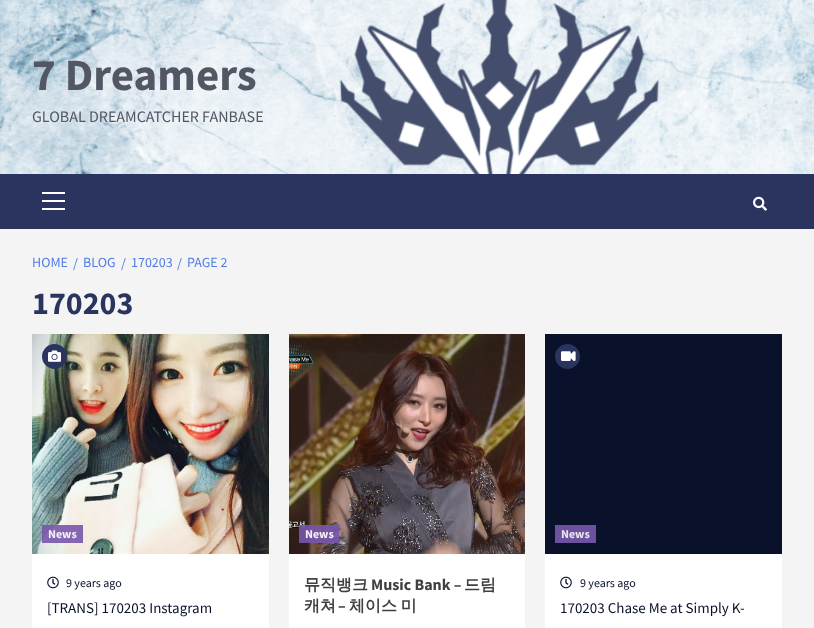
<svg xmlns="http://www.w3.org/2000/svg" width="814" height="628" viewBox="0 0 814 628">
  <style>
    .t1 { font: bold 45px Source Sans Pro; fill: #535663; }
    .t2 { font: 16px Source Sans Pro; fill: #535663; }
    .t3 { font: 14px Source Sans Pro; fill: #527ce5; }
    .t4 { font: bold 32px Source Sans Pro; fill: #2b345e; }
    .t5 { font: bold 12px Source Sans Pro; fill: #f3f0f7; }
    .t6 { font: 12px Source Sans Pro; fill: #09112b; }
    .t7 { font: 15px Source Sans Pro; fill: #09112b; }
    .t8 { font: bold 16px WenQuanYi Zen Hei; fill: #404040; }
    .t9 { font: bold 16px Source Sans Pro; fill: #404040; }
    .t10 { font: bold 12px Source Sans Pro; fill: #e6e7ea; }
  </style>
  <rect width="100%" height="100%" fill="#f4f4f4"/>
  <image x="0" y="0" width="814" height="174" href="images/1.png"/>
  <text x="32" y="90" class="t1">7 Dreamers</text>
  <text x="32" y="122" class="t2">GLOBAL DREAMCATCHER FANBASE</text>
  <rect x="0" y="174" width="814" height="55" fill="#2b345e"/>
  <rect x="42" y="200" width="23" height="2" fill="#fff"/>
  <rect x="42" y="192" width="23" height="2" fill="#fff"/>
  <rect x="42" y="208" width="23" height="2" fill="#fff"/>
  <image x="753" y="196" width="14" height="15" href="images/2.png"/>
  <text x="32" y="267" class="t3">HOME</text>
  <text x="73" y="268" class="t3">/</text>
  <text x="83" y="267" class="t3">BLOG</text>
  <text x="121" y="268" class="t3">/</text>
  <text x="131" y="267" class="t3">170203</text>
  <text x="177" y="268" class="t3">/</text>
  <text x="187" y="267" class="t3">PAGE 2</text>
  <text x="32" y="314" class="t4">170203</text>
  <rect x="32" y="554" width="237" height="74" fill="#fff"/>
  <image x="32" y="334" width="237" height="220" href="images/3.png"/>
  <circle cx="54.5" cy="356.5" r="12.5" fill="#2b345e"/>
  <image x="48" y="350" width="13" height="12" href="images/4.png"/>
  <rect x="42" y="525" width="41" height="18" fill="#7857ace6"/>
  <text x="48" y="538" class="t5">News</text>
  <image x="47" y="576" width="12" height="13" href="images/5.png"/>
  <text x="66" y="587" class="t6">9 years ago</text>
  <text x="47" y="613" class="t7">[TRANS] 170203 Instagram</text>
  <rect x="289" y="554" width="236" height="74" fill="#fff"/>
  <image x="289" y="334" width="236" height="220" href="images/6.png"/>
  <rect x="299" y="525" width="40" height="18" fill="#7857ace6"/>
  <text x="305" y="538" class="t5">News</text>
  <text x="304" y="590" class="t8">뮤직뱅크</text>
  <text x="371" y="590" class="t9">Music Bank –</text>
  <text x="464" y="590" class="t8">드림</text>
  <text x="304" y="611" class="t8">캐쳐</text>
  <text x="338" y="611" class="t9">–</text>
  <text x="349" y="611" word-spacing="-1" class="t8">체이스 미</text>
  <rect x="545" y="554" width="237" height="74" fill="#fff"/>
  <rect x="545" y="334" width="237" height="220" fill="#09112b"/>
  <circle cx="567.5" cy="356.5" r="12.5" fill="#2b345e"/>
  <image x="561" y="351" width="15" height="10" href="images/7.png"/>
  <rect x="555" y="525" width="41" height="18" fill="#6d509f"/>
  <text x="561" y="538" class="t10">News</text>
  <image x="560" y="576" width="12" height="13" href="images/5.png"/>
  <text x="580" y="587" class="t6">9 years ago</text>
  <text x="560" y="613" class="t7">170203 Chase Me at Simply K-</text>
</svg>
